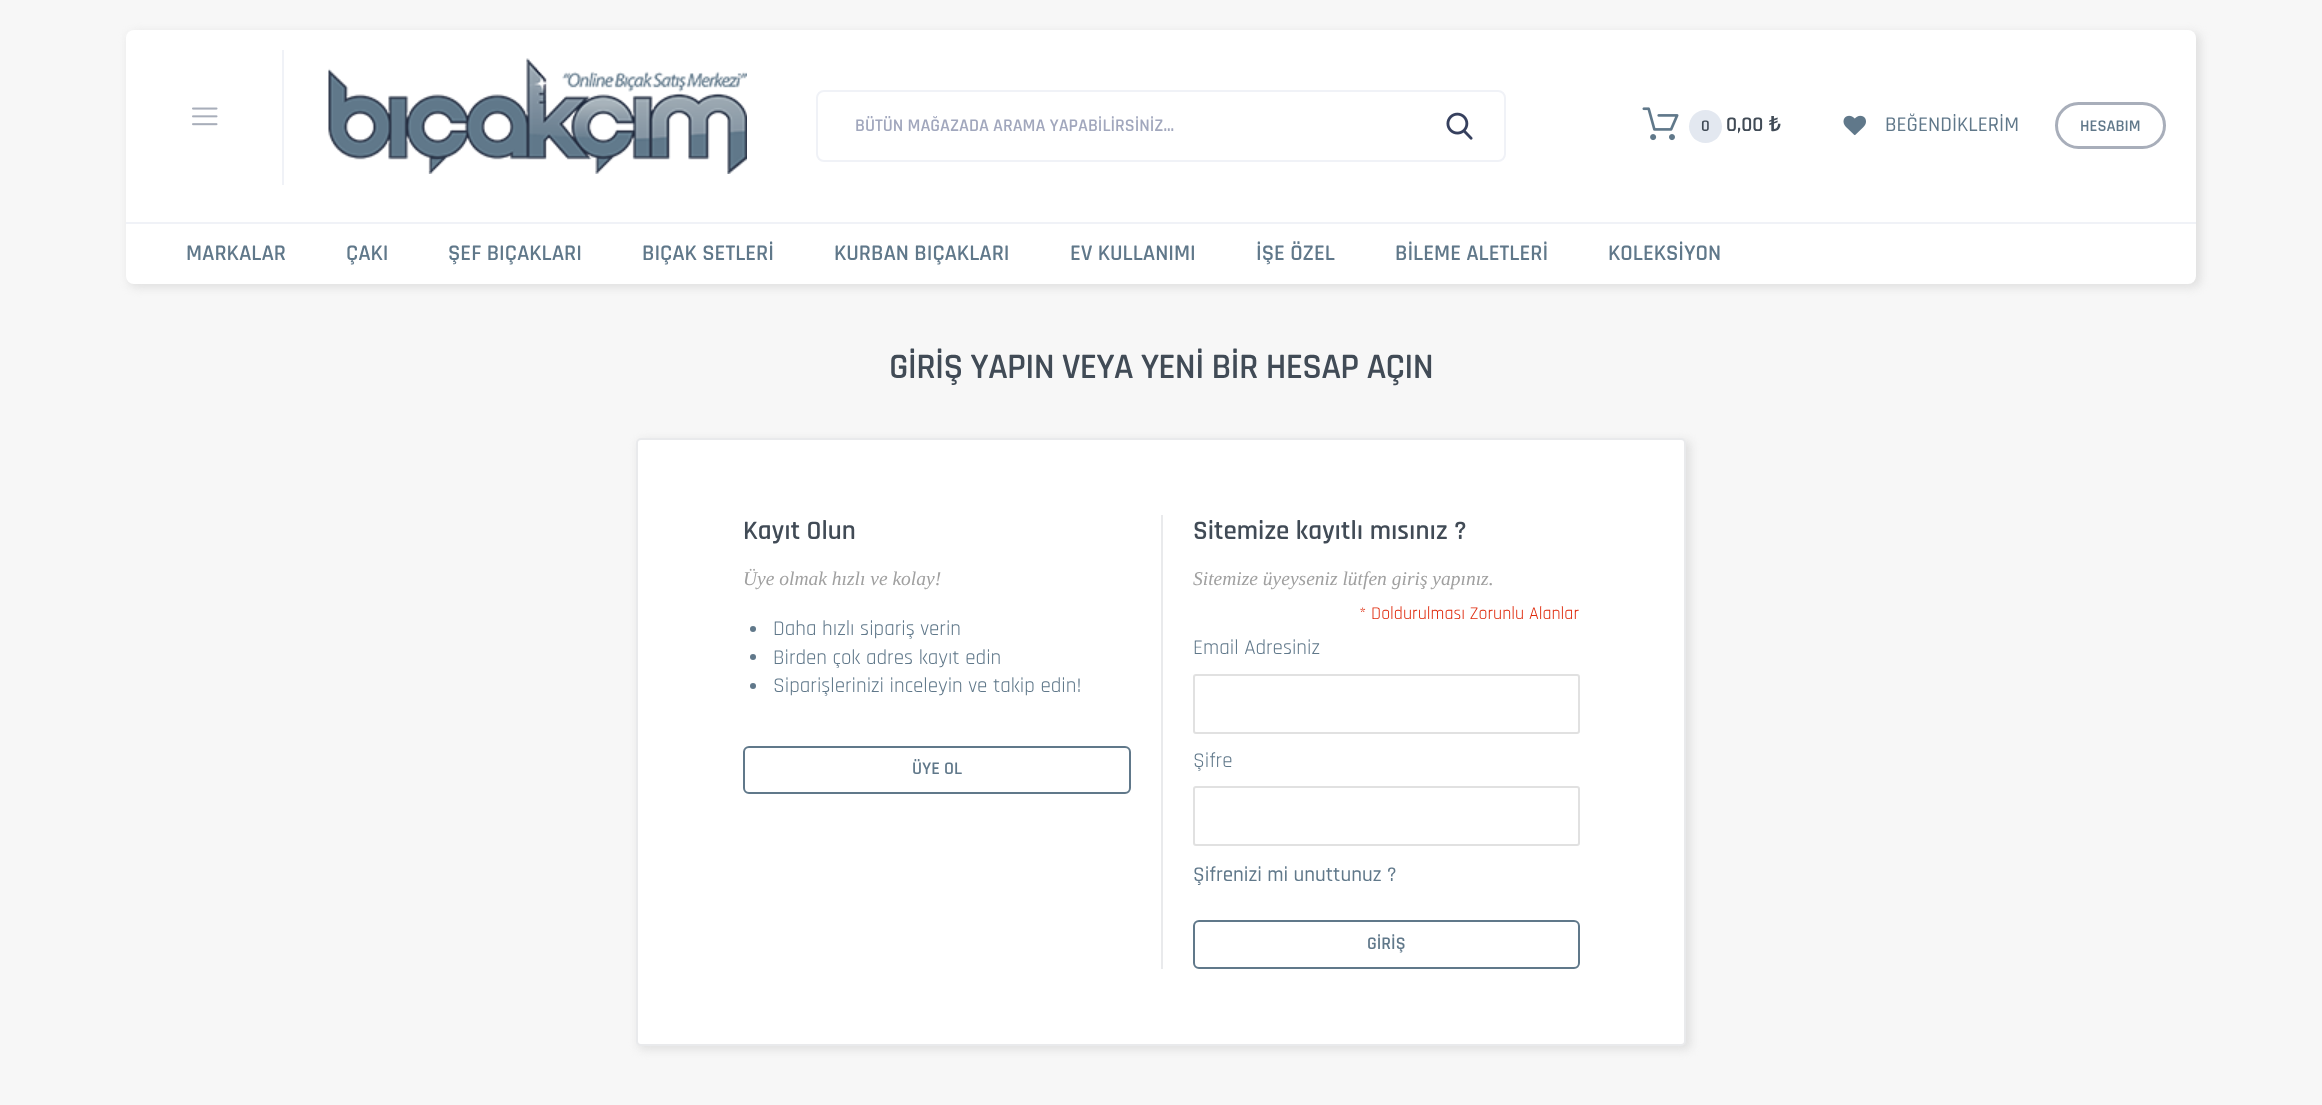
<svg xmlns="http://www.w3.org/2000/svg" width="2322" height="1105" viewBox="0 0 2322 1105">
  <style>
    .t1 { font: 600 18px Rajdhani; fill: #a1a7bd; }
    .t2 { font: 600 16.5px Rajdhani; fill: #414b56; }
    .t3 { font: 600 21px Rajdhani; fill: #414b56; }
    .t4 { font: 600 21px Noto Sans; fill: #414b56; }
    .t5 { font: 500 21px Rajdhani; fill: #60788a; }
    .t6 { font: 600 16.5px Rajdhani; fill: #60788a; }
    .t7 { font: 600 22.5px Rajdhani; fill: #60788a; }
    .t8 { font: 600 36px Rajdhani; letter-spacing: -0.7px; fill: #414b56; }
    .t9 { font: 600 27px Rajdhani; fill: #414b56; }
    .t10 { font: italic 19.5px Liberation Serif; fill: #a0a0a0; }
    .t11 { font: 21px Rajdhani; fill: #60788a; }
    .t12 { font: 600 18px Rajdhani; fill: #60788a; }
    .t13 { font: 18px Rajdhani; fill: #df280a; }
  </style>
  <rect width="100%" height="100%" fill="#f7f7f7"/>
  <rect x="128" y="32" width="2073" height="256" rx="9" fill="#e1e1e1" filter="blur(4px)"/>
  <rect x="126" y="30" width="2070" height="254" rx="8" fill="#fff"/>
  <rect x="282" y="50" width="2" height="135" fill="#f0f2f7"/>
  <image x="192" y="107" width="26" height="19" href="images/1.png"/>
  <image x="328" y="58" width="419" height="116" href="images/2.png"/>
  <rect x="817" y="91" width="688" height="70" rx="7" fill="none" stroke="#f0f2f7" stroke-width="2"/>
  <text x="855" y="131" class="t1">BÜTÜN MAĞAZADA ARAMA YAPABİLİRSİNİZ...</text>
  <image x="1446" y="112" width="27" height="28" href="images/3.png"/>
  <image x="1642" y="107" width="37" height="34" href="images/4.png"/>
  <circle cx="1705.5" cy="126.5" r="16.5" fill="#e3e8f0"/>
  <text x="1701" y="131" class="t2">0</text>
  <text x="1726" y="131" class="t3">0,00</text>
  <text x="1769" y="131" class="t4">₺</text>
  <image x="1843" y="115" width="23" height="21" href="images/5.png"/>
  <text x="1885" y="131" class="t5">BEĞENDİKLERİM</text>
  <rect x="2056.5" y="103.5" width="108" height="44" rx="22" fill="none" stroke="#a8aeba" stroke-width="3"/>
  <text x="2080" y="131" class="t6">HESABIM</text>
  <rect x="126" y="222" width="2070" height="2" fill="#f0f2f7"/>
  <text x="186" y="260" class="t7">MARKALAR</text>
  <text x="346" y="260" class="t7">ÇAKI</text>
  <text x="448" y="260" class="t7">ŞEF BIÇAKLARI</text>
  <text x="642" y="260" class="t7">BIÇAK SETLERİ</text>
  <text x="834" y="260" class="t7">KURBAN BIÇAKLARI</text>
  <text x="1070" y="260" class="t7">EV KULLANIMI</text>
  <text x="1256" y="260" class="t7">İŞE ÖZEL</text>
  <text x="1395" y="260" class="t7">BİLEME ALETLERİ</text>
  <text x="1608" y="260" class="t7">KOLEKSİYON</text>
  <text x="889" y="378" class="t8">GİRİŞ YAPIN VEYA YENİ BİR HESAP AÇIN</text>
  <rect x="638" y="440" width="1053" height="610" rx="6" fill="#e1e1e1" filter="blur(4px)"/>
  <rect x="637" y="439" width="1048" height="606" rx="4" fill="#fff" stroke="#e9eaec" stroke-width="2"/>
  <text x="743" y="539" class="t9">Kayıt Olun</text>
  <text x="743" y="585" class="t10">Üye olmak hızlı ve kolay!</text>
  <circle cx="753" cy="629" r="3" fill="#60788a"/>
  <text x="773" y="635" class="t11">Daha hızlı sipariş verin</text>
  <circle cx="753" cy="657" r="3" fill="#60788a"/>
  <text x="773" y="664" class="t11">Birden çok adres kayıt edin</text>
  <circle cx="753" cy="686" r="3" fill="#60788a"/>
  <text x="773" y="692" class="t11">Siparişlerinizi inceleyin ve takip edin!</text>
  <rect x="744" y="747" width="386" height="46" rx="5" fill="none" stroke="#60788a" stroke-width="2"/>
  <text x="912" y="774" class="t12">ÜYE OL</text>
  <rect x="1161" y="515" width="2" height="454" fill="#e9eaec"/>
  <text x="1193" y="539" class="t9">Sitemize kayıtlı mısınız ?</text>
  <text x="1193" y="585" class="t10">Sitemize üyeyseniz lütfen giriş yapınız.</text>
  <text x="1359" y="619" class="t13">* Doldurulması Zorunlu Alanlar</text>
  <text x="1193" y="654" class="t11">Email Adresiniz</text>
  <rect x="1194" y="675" width="385" height="58" rx="2" fill="none" stroke="#e1e1e1" stroke-width="2"/>
  <text x="1193" y="767" class="t11">Şifre</text>
  <rect x="1194" y="787" width="385" height="58" rx="2" fill="none" stroke="#e1e1e1" stroke-width="2"/>
  <text x="1193" y="881" class="t5">Şifrenizi mi unuttunuz ?</text>
  <rect x="1194" y="921" width="385" height="47" rx="5" fill="none" stroke="#60788a" stroke-width="2"/>
  <text x="1367" y="949" class="t12">GİRİŞ</text>
</svg>
